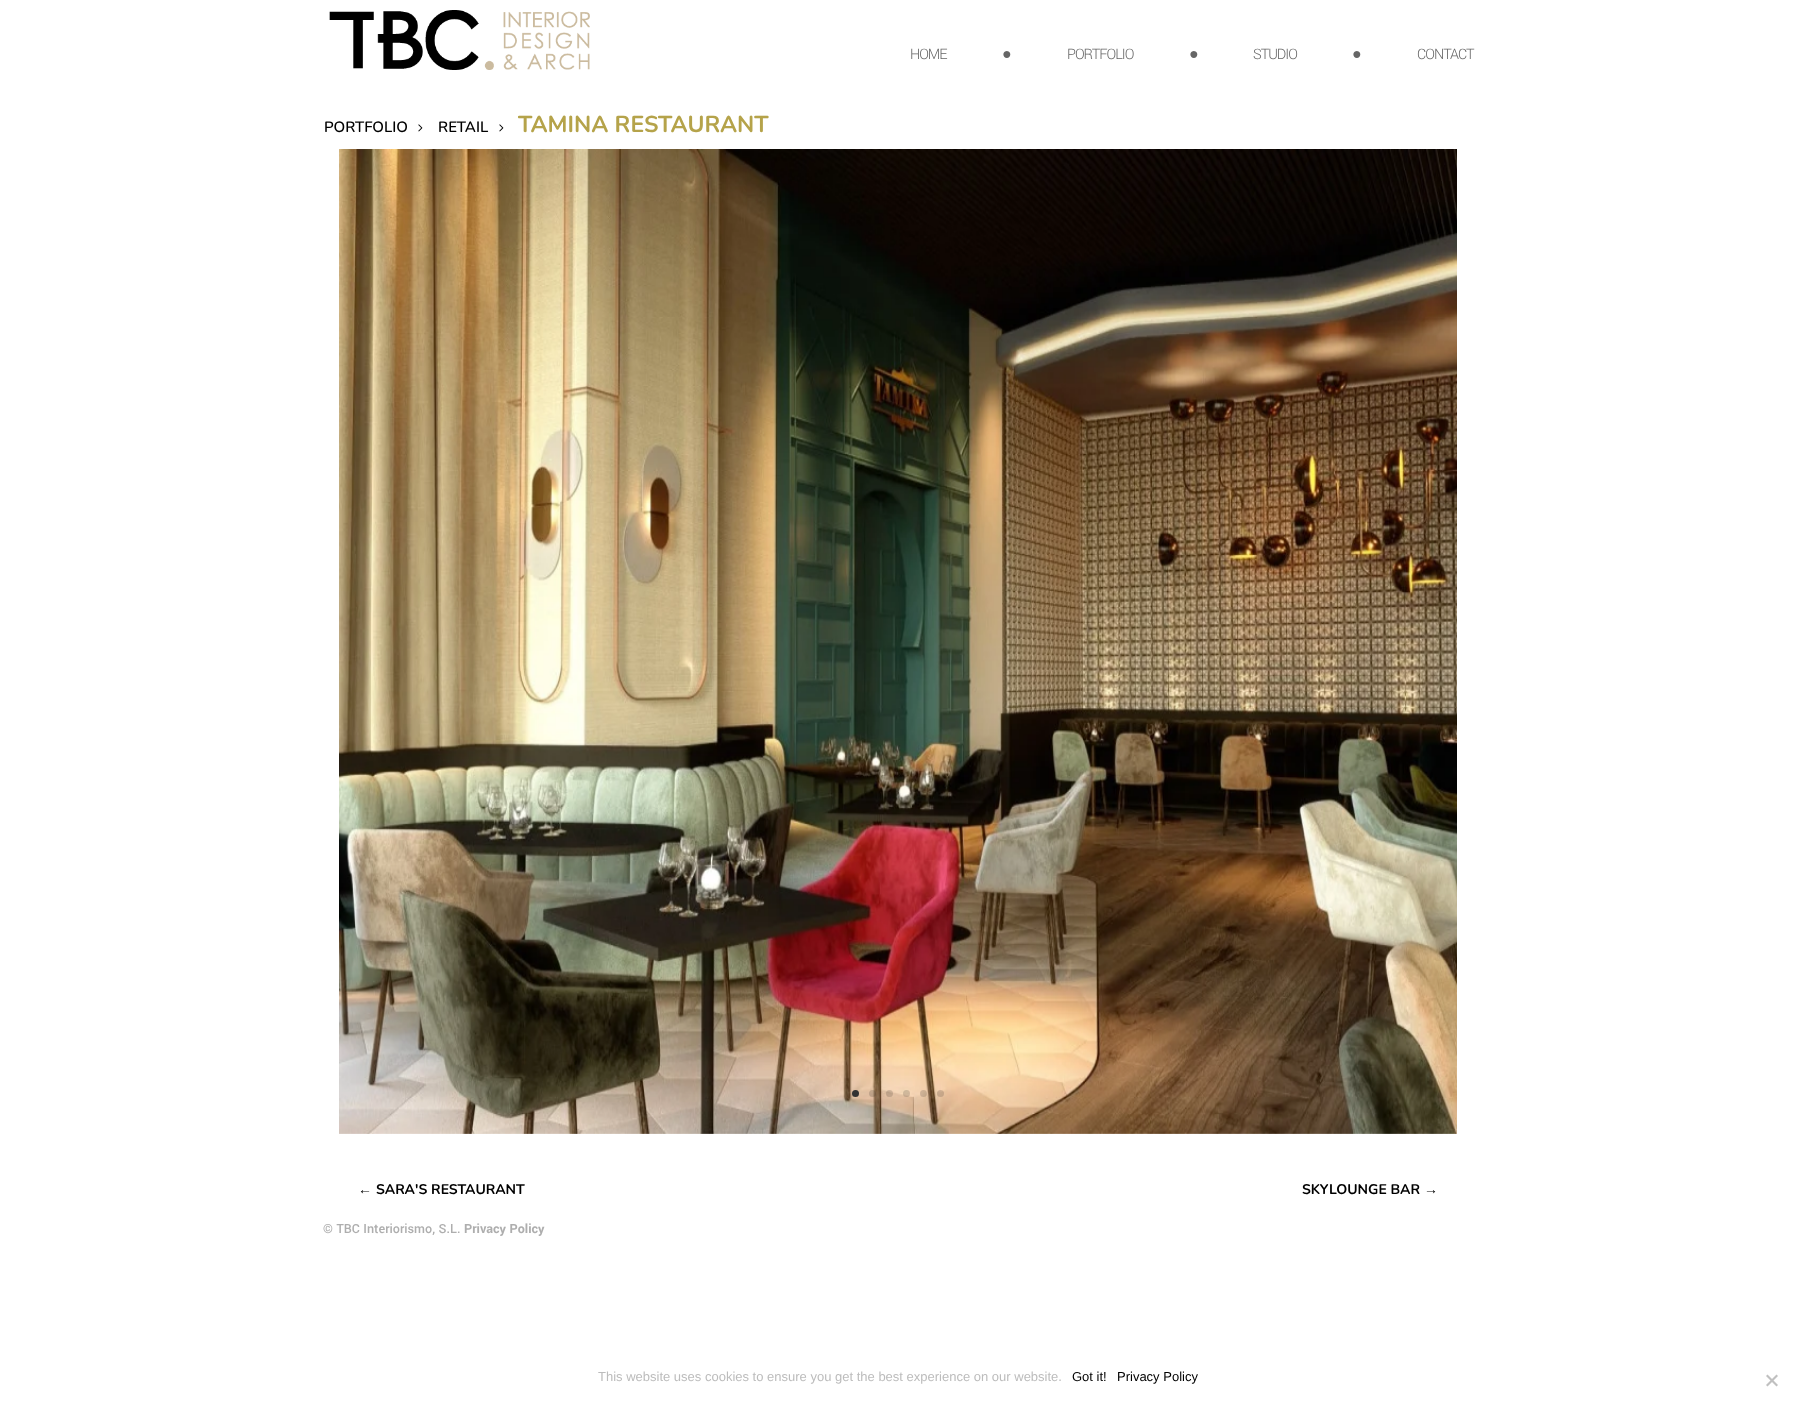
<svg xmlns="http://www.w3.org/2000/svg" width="1796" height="1408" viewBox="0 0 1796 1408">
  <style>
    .t1 { font: 300 16px Yantramanav; letter-spacing: -1px; fill: #666; }
    .t2 { font: 16px Liberation Sans; letter-spacing: -1px; fill: #666; }
    .t3 { font: 600 15px Nunito; fill: #000; }
    .t4 { font: bold 23px Nunito; fill: #b5a34a; }
    .t5 { font: bold 14px Liberation Sans; fill: #000; }
    .t6 { font: bold 14px Nunito; fill: #000; }
    .t7 { font: 500 14px Yantramanav; fill: #aeaeae; }
    .t8 { font: bold 14px Yantramanav; fill: #aeaeae; }
    .t9 { font: 13px Liberation Sans; fill: #bcbcbc; }
    .t10 { font: 13px Liberation Sans; fill: #000; }
  </style>
  <rect width="100%" height="100%" fill="#fff"/>
  <image x="329" y="10" width="261" height="60" href="images/1.png"/>
  <text x="910" y="59" class="t1">HOME</text>
  <text x="1002" y="59" class="t2">●</text>
  <text x="1067" y="59" class="t1">PORTFOLIO</text>
  <text x="1189" y="59" class="t2">●</text>
  <text x="1253" y="59" class="t1">STUDIO</text>
  <text x="1352" y="59" class="t2">●</text>
  <text x="1417" y="59" class="t1">CONTACT</text>
  <text x="324" y="132" class="t3">PORTFOLIO</text>
  <image x="418" y="124" width="5" height="8" href="images/2.png"/>
  <text x="438" y="132" class="t3">RETAIL</text>
  <image x="499" y="124" width="5" height="8" href="images/2.png"/>
  <text x="518" y="132" class="t4">TAMINA RESTAURANT</text>
  <image x="339" y="149" width="1118" height="985" href="images/3.png"/>
  <circle cx="855.5" cy="1093.5" r="3.5" fill="#333"/>
  <circle cx="872.5" cy="1093.5" r="3.5" fill="#00000026"/>
  <circle cx="889.5" cy="1093.5" r="3.5" fill="#00000026"/>
  <circle cx="906.5" cy="1093.5" r="3.5" fill="#00000026"/>
  <circle cx="923.5" cy="1093.5" r="3.5" fill="#00000026"/>
  <circle cx="940.5" cy="1093.5" r="3.5" fill="#00000026"/>
  <text x="358" y="1194" class="t5">←</text>
  <text x="376" y="1194" class="t6">SARA'S RESTAURANT</text>
  <text x="1302" y="1194" class="t6">SKYLOUNGE BAR</text>
  <text x="1424" y="1194" class="t5">→</text>
  <text x="323" y="1233" class="t7">© TBC Interiorismo, S.L.</text>
  <text x="464" y="1233" class="t8">Privacy Policy</text>
  <text x="598" y="1381" class="t9">This website uses cookies to ensure you get the best experience on our website.</text>
  <text x="1072" y="1381" class="t10">Got it!</text>
  <text x="1117" y="1381" class="t10">Privacy Policy</text>
  <path d="M1776.5 1374.5L1778 1376L1767.5 1386.5L1766 1385Z" fill="#c0c0c0"/>
  <path d="M1766 1376L1767.5 1374.5L1778 1385L1776.5 1386.5Z" fill="#c0c0c0"/>
</svg>
